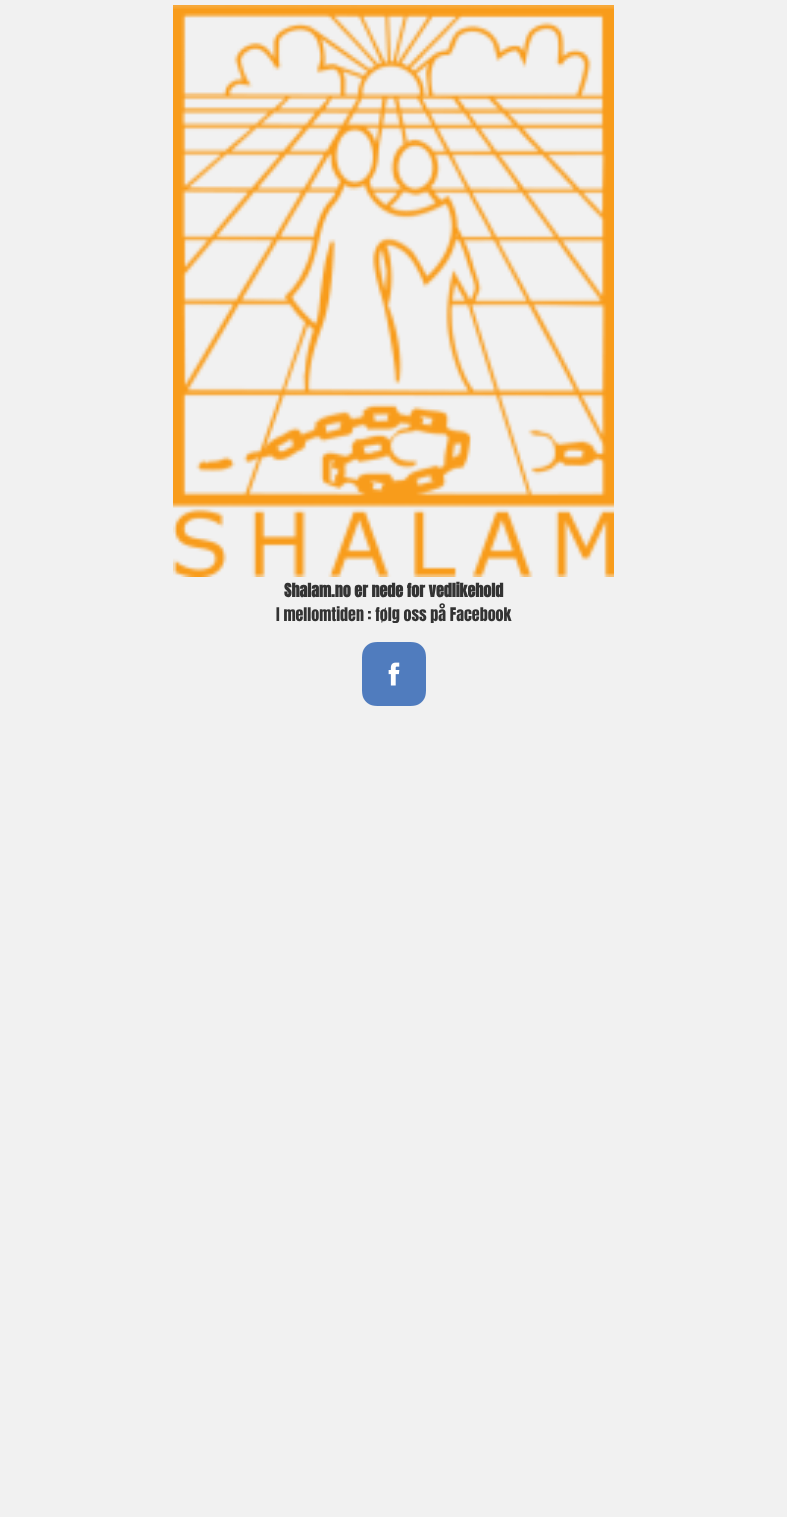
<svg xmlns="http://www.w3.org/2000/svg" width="787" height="1517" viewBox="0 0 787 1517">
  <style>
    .t1 { font: bold 16px Anton; fill: #333; }
    .t2 { font: 16px Anton; fill: #333; }
  </style>
  <rect width="100%" height="100%" fill="#f1f1f1"/>
  <image x="173" y="5" width="441" height="572" href="images/1.png"/>
  <text x="284" y="597" class="t1">Shalam.no er nede for vedlikehold</text>
  <text x="276" y="621" class="t2">I mellomtiden : følg oss på Facebook</text>
  <image x="362" y="642" width="64" height="64" href="images/2.png"/>
</svg>
